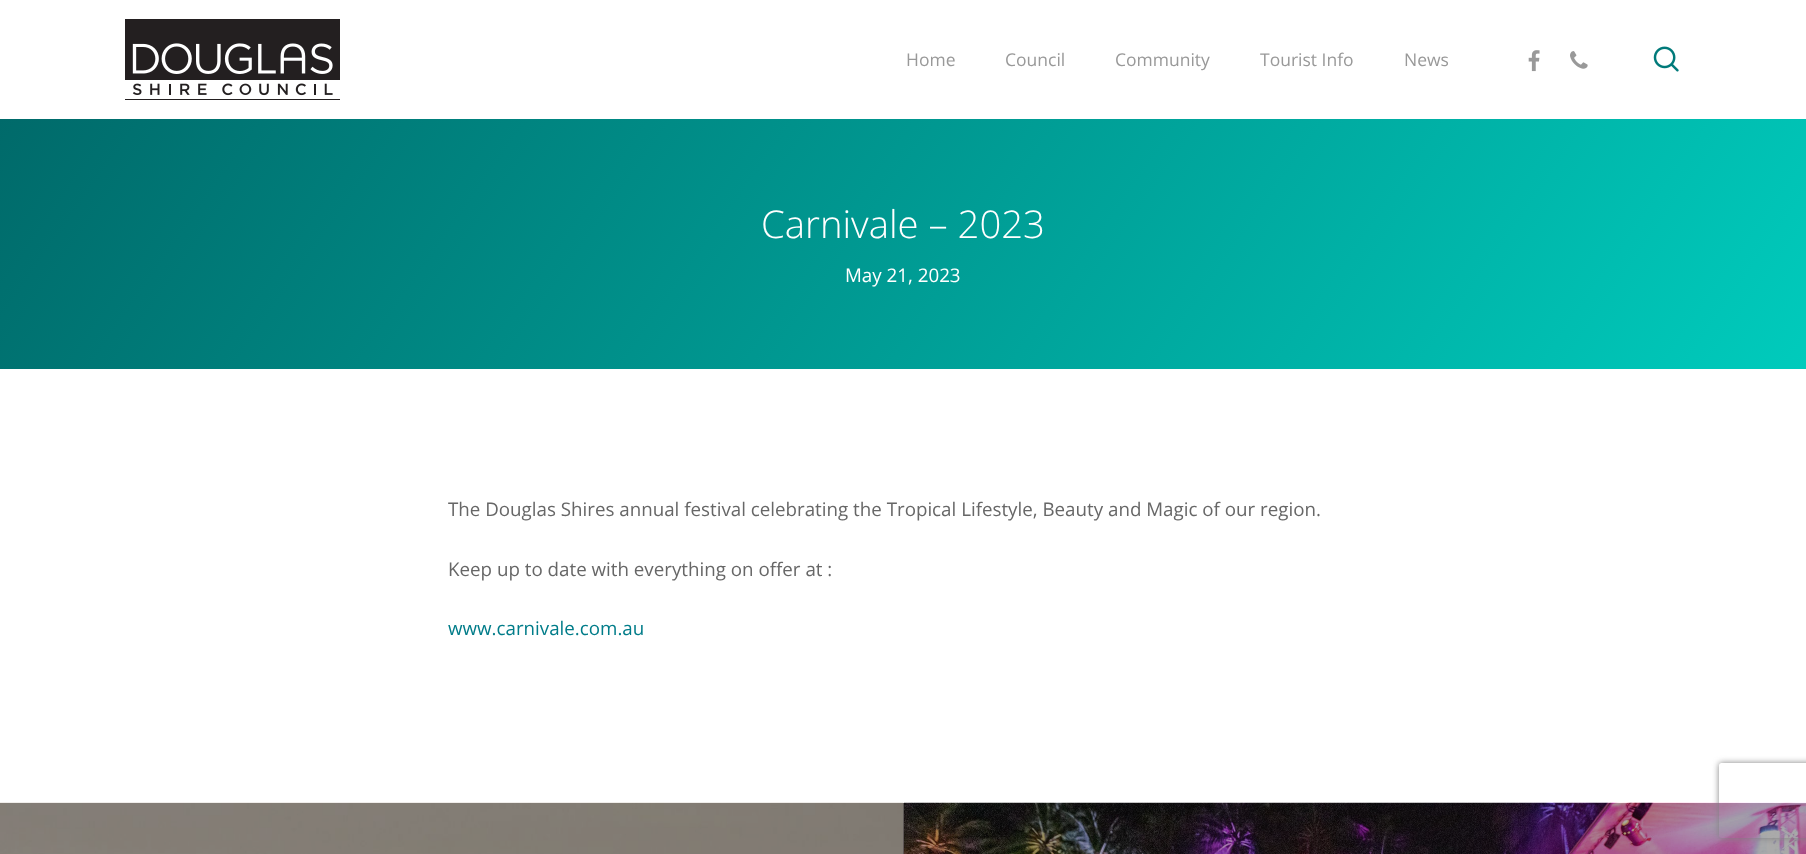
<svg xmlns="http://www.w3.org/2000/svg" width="1806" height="854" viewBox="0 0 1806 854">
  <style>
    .t1 { font: 17.5px Open Sans; fill: #999; }
    .t2 { font: 300 38.25px Open Sans; fill: #fff; }
    .t3 { font: 18.75px Open Sans; fill: #fff; }
    .t4 { font: 18.75px Open Sans; fill: #676767; }
    .t5 { font: 18.75px Open Sans; fill: #007c89; }
  </style>
  <defs>
    <linearGradient id="g1" gradientUnits="userSpaceOnUse" x1="238" y1="-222" x2="1568" y2="709"><stop offset="0" stop-color="#006a6a"/><stop offset="1" stop-color="#00cbbc"/></linearGradient>
    <clipPath id="clip1"><path d="M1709 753H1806V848H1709ZM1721.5 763H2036.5C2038 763 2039 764 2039 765.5V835.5C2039 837 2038 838 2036.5 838H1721.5C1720 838 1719 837 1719 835.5V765.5C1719 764 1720 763 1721.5 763Z" clip-rule="evenodd"/></clipPath>
  </defs>
  <rect width="100%" height="100%" fill="#fff"/>
  <image x="125" y="19" width="215" height="81" href="images/1.png"/>
  <text x="906" y="66" class="t1">Home</text>
  <text x="1005" y="66" class="t1">Council</text>
  <text x="1115" y="66" class="t1">Community</text>
  <text x="1260" y="66" class="t1">Tourist Info</text>
  <text x="1404" y="66" class="t1">News</text>
  <image x="1528" y="50" width="12" height="22" href="images/2.png"/>
  <image x="1570" y="51" width="18" height="18" href="images/3.png"/>
  <image x="1653" y="46" width="26" height="26" href="images/4.png"/>
  <rect x="0" y="119" width="1806" height="250" fill="url(#g1)"/>
  <text x="761" y="238" class="t2">Carnivale – 2023</text>
  <text x="845" y="282" class="t3">May 21, 2023</text>
  <text x="448" y="516" class="t4">The Douglas Shires annual festival celebrating the Tropical Lifestyle, Beauty and Magic of our region.</text>
  <text x="448" y="576" class="t4">Keep up to date with everything on offer at :</text>
  <text x="448" y="635" class="t5">www.carnivale.com.au</text>
  <rect x="903" y="803" width="1" height="51" fill="#333"/>
  <image x="0" y="802" width="904" height="52" href="images/5.png"/>
  <image x="903" y="802" width="903" height="52" href="images/6.png"/>
  <rect x="0" y="803" width="904" height="51" fill="#0d0d0d59"/>
  <g clip-path="url(#clip1)">
    <rect x="1719" y="763" width="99" height="75" rx="2.5" fill="#808080" filter="blur(3px)"/>
  </g>
</svg>
